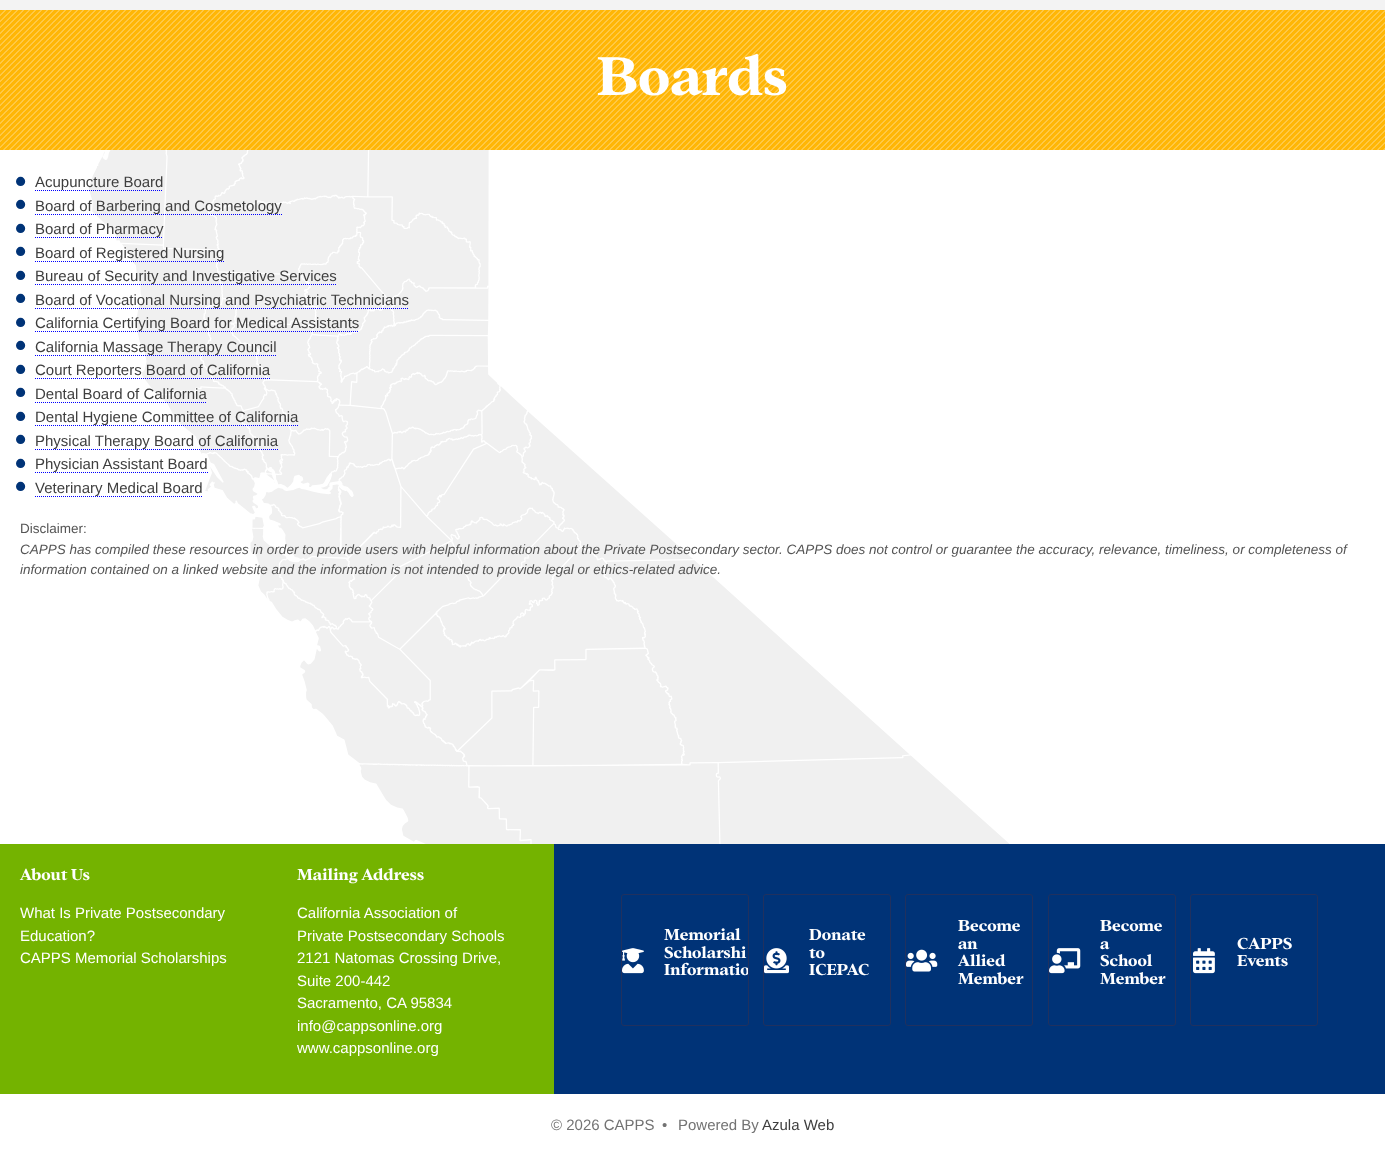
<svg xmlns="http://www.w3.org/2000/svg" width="1385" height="1157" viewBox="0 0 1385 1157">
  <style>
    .t1 { font: bold 60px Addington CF; fill: #fff; }
    .t2 { font: bold 32px Liberation Sans; fill: #037; }
    .t3 { font: 15px Liberation Sans; fill: #3e3e3e; }
    .t4 { font: 13.5px Liberation Sans; fill: #555; }
    .t5 { font: italic 13.5px Liberation Sans; fill: #555; }
    .t6 { font: bold 17.5px Addington CF; fill: #fff; }
    .t7 { font: 15px Liberation Sans; fill: #fff; }
    .t8 { font: 15px Liberation Sans; fill: #737373; }
  </style>
  <defs>
    <clipPath id="clip1"><rect x="644" y="904" width="104" height="113"/></clipPath>
  </defs>
  <rect width="100%" height="100%" fill="#fff"/>
  <rect x="0" y="0" width="1385" height="10" fill="#f3f3f3"/>
  <rect x="0" y="10" width="1385" height="140" fill="#ffb606"/>
  <image x="0" y="10" width="1385" height="140" href="images/1.png"/>
  <text x="597" y="95" class="t1">Boards</text>
  <image x="89" y="150" width="920" height="694" href="images/2.png"/>
  <text x="15" y="192" class="t2">•</text>
  <path d="M35 190.5H163" fill="none" stroke="#00f" stroke-dasharray="1 1"/>
  <text x="35" y="187" class="t3">Acupuncture Board</text>
  <text x="15" y="215" class="t2">•</text>
  <path d="M35 214.5H282" fill="none" stroke="#00f" stroke-dasharray="1 1"/>
  <text x="35" y="211" class="t3">Board of Barbering and Cosmetology</text>
  <text x="15" y="239" class="t2">•</text>
  <path d="M35 237.5H163" fill="none" stroke="#00f" stroke-dasharray="1 1"/>
  <text x="35" y="234" class="t3">Board of Pharmacy</text>
  <text x="15" y="262" class="t2">•</text>
  <path d="M35 261.5H224" fill="none" stroke="#00f" stroke-dasharray="1 1"/>
  <text x="35" y="258" class="t3">Board of Registered Nursing</text>
  <text x="15" y="286" class="t2">•</text>
  <path d="M35 284.5H337" fill="none" stroke="#00f" stroke-dasharray="1 1"/>
  <text x="35" y="281" class="t3">Bureau of Security and Investigative Services</text>
  <text x="15" y="309" class="t2">•</text>
  <path d="M35 308.5H409" fill="none" stroke="#00f" stroke-dasharray="1 1"/>
  <text x="35" y="305" class="t3">Board of Vocational Nursing and Psychiatric Technicians</text>
  <text x="15" y="333" class="t2">•</text>
  <path d="M35 331.5H359" fill="none" stroke="#00f" stroke-dasharray="1 1"/>
  <text x="35" y="328" class="t3">California Certifying Board for Medical Assistants</text>
  <text x="15" y="356" class="t2">•</text>
  <path d="M35 355.5H277" fill="none" stroke="#00f" stroke-dasharray="1 1"/>
  <text x="35" y="352" class="t3">California Massage Therapy Council</text>
  <text x="15" y="380" class="t2">•</text>
  <path d="M35 378.5H270" fill="none" stroke="#00f" stroke-dasharray="1 1"/>
  <text x="35" y="375" class="t3">Court Reporters Board of California</text>
  <text x="15" y="403" class="t2">•</text>
  <text x="35" y="399" class="t3">Dental Board of California</text>
  <path d="M35 402.5H207" fill="none" stroke="#00f" stroke-dasharray="1 1"/>
  <text x="15" y="427" class="t2">•</text>
  <path d="M35 425.5H298" fill="none" stroke="#00f" stroke-dasharray="1 1"/>
  <text x="35" y="422" class="t3">Dental Hygiene Committee of California</text>
  <text x="15" y="450" class="t2">•</text>
  <path d="M35 449.5H278" fill="none" stroke="#00f" stroke-dasharray="1 1"/>
  <text x="35" y="446" class="t3">Physical Therapy Board of California</text>
  <text x="15" y="474" class="t2">•</text>
  <path d="M35 472.5H208" fill="none" stroke="#00f" stroke-dasharray="1 1"/>
  <text x="35" y="469" class="t3">Physician Assistant Board</text>
  <text x="15" y="497" class="t2">•</text>
  <path d="M35 496.5H203" fill="none" stroke="#00f" stroke-dasharray="1 1"/>
  <text x="35" y="493" class="t3">Veterinary Medical Board</text>
  <text x="20" y="533" class="t4">Disclaimer:</text>
  <text x="20" y="554" class="t5">CAPPS has compiled these resources in order to provide users with helpful information about the Private Postsecondary sector. CAPPS does not control or guarantee the accuracy, relevance, timeliness, or completeness of</text>
  <text x="20" y="574" class="t5">information contained on a linked website and the information is not intended to provide legal or ethics-related advice.</text>
  <rect x="554" y="844" width="831" height="250" fill="#037"/>
  <rect x="0" y="844" width="554" height="250" fill="#74b300"/>
  <text x="20" y="880" class="t6">About Us</text>
  <text x="20" y="918" class="t7">What Is Private Postsecondary</text>
  <text x="20" y="941" class="t7">Education?</text>
  <text x="20" y="963" class="t7">CAPPS Memorial Scholarships</text>
  <text x="297" y="880" class="t6">Mailing Address</text>
  <text x="297" y="918" class="t7">California Association of</text>
  <text x="297" y="941" class="t7">Private Postsecondary Schools</text>
  <text x="297" y="963" class="t7">2121 Natomas Crossing Drive,</text>
  <text x="297" y="986" class="t7">Suite 200-442</text>
  <text x="297" y="1008" class="t7">Sacramento, CA 95834</text>
  <text x="297" y="1031" class="t7">info@cappsonline.org</text>
  <text x="297" y="1053" class="t7">www.cappsonline.org</text>
  <rect x="621.5" y="894.5" width="127" height="131" rx="2.5" fill="none" stroke="#20315f"/>
  <image x="622" y="948" width="22" height="26" href="images/3.png"/>
  <text x="664" y="940" class="t6">Memorial</text>
  <text x="664" y="958" class="t6">Scholarshi</text>
  <g clip-path="url(#clip1)">
    <text x="664" y="975" class="t6">Informatio</text>
  </g>
  <rect x="763.5" y="894.5" width="127" height="131" rx="2.5" fill="none" stroke="#20315f"/>
  <image x="764" y="948" width="25" height="26" href="images/4.png"/>
  <text x="809" y="940" class="t6">Donate</text>
  <text x="809" y="958" class="t6">to</text>
  <text x="809" y="975" class="t6">ICEPAC</text>
  <rect x="905.5" y="894.5" width="127" height="131" rx="2.5" fill="none" stroke="#20315f"/>
  <image x="906" y="949" width="32" height="23" href="images/5.png"/>
  <text x="958" y="931" class="t6">Become</text>
  <text x="958" y="949" class="t6">an</text>
  <text x="958" y="966" class="t6">Allied</text>
  <text x="958" y="984" class="t6">Member</text>
  <rect x="1048.5" y="894.5" width="127" height="131" rx="2.5" fill="none" stroke="#20315f"/>
  <image x="1049" y="948" width="32" height="26" href="images/6.png"/>
  <text x="1100" y="931" class="t6">Become</text>
  <text x="1100" y="949" class="t6">a</text>
  <text x="1100" y="966" class="t6">School</text>
  <text x="1100" y="984" class="t6">Member</text>
  <rect x="1190.5" y="894.5" width="127" height="131" rx="2.5" fill="none" stroke="#20315f"/>
  <image x="1193" y="948" width="22" height="26" href="images/7.png"/>
  <text x="1237" y="949" class="t6">CAPPS</text>
  <text x="1237" y="966" class="t6">Events</text>
  <text x="551" y="1130" class="t8">© 2026 CAPPS</text>
  <text x="662" y="1130" class="t8">•</text>
  <text x="678" y="1130" class="t8">Powered By</text>
  <text x="762" y="1130" class="t3">Azula Web</text>
</svg>
